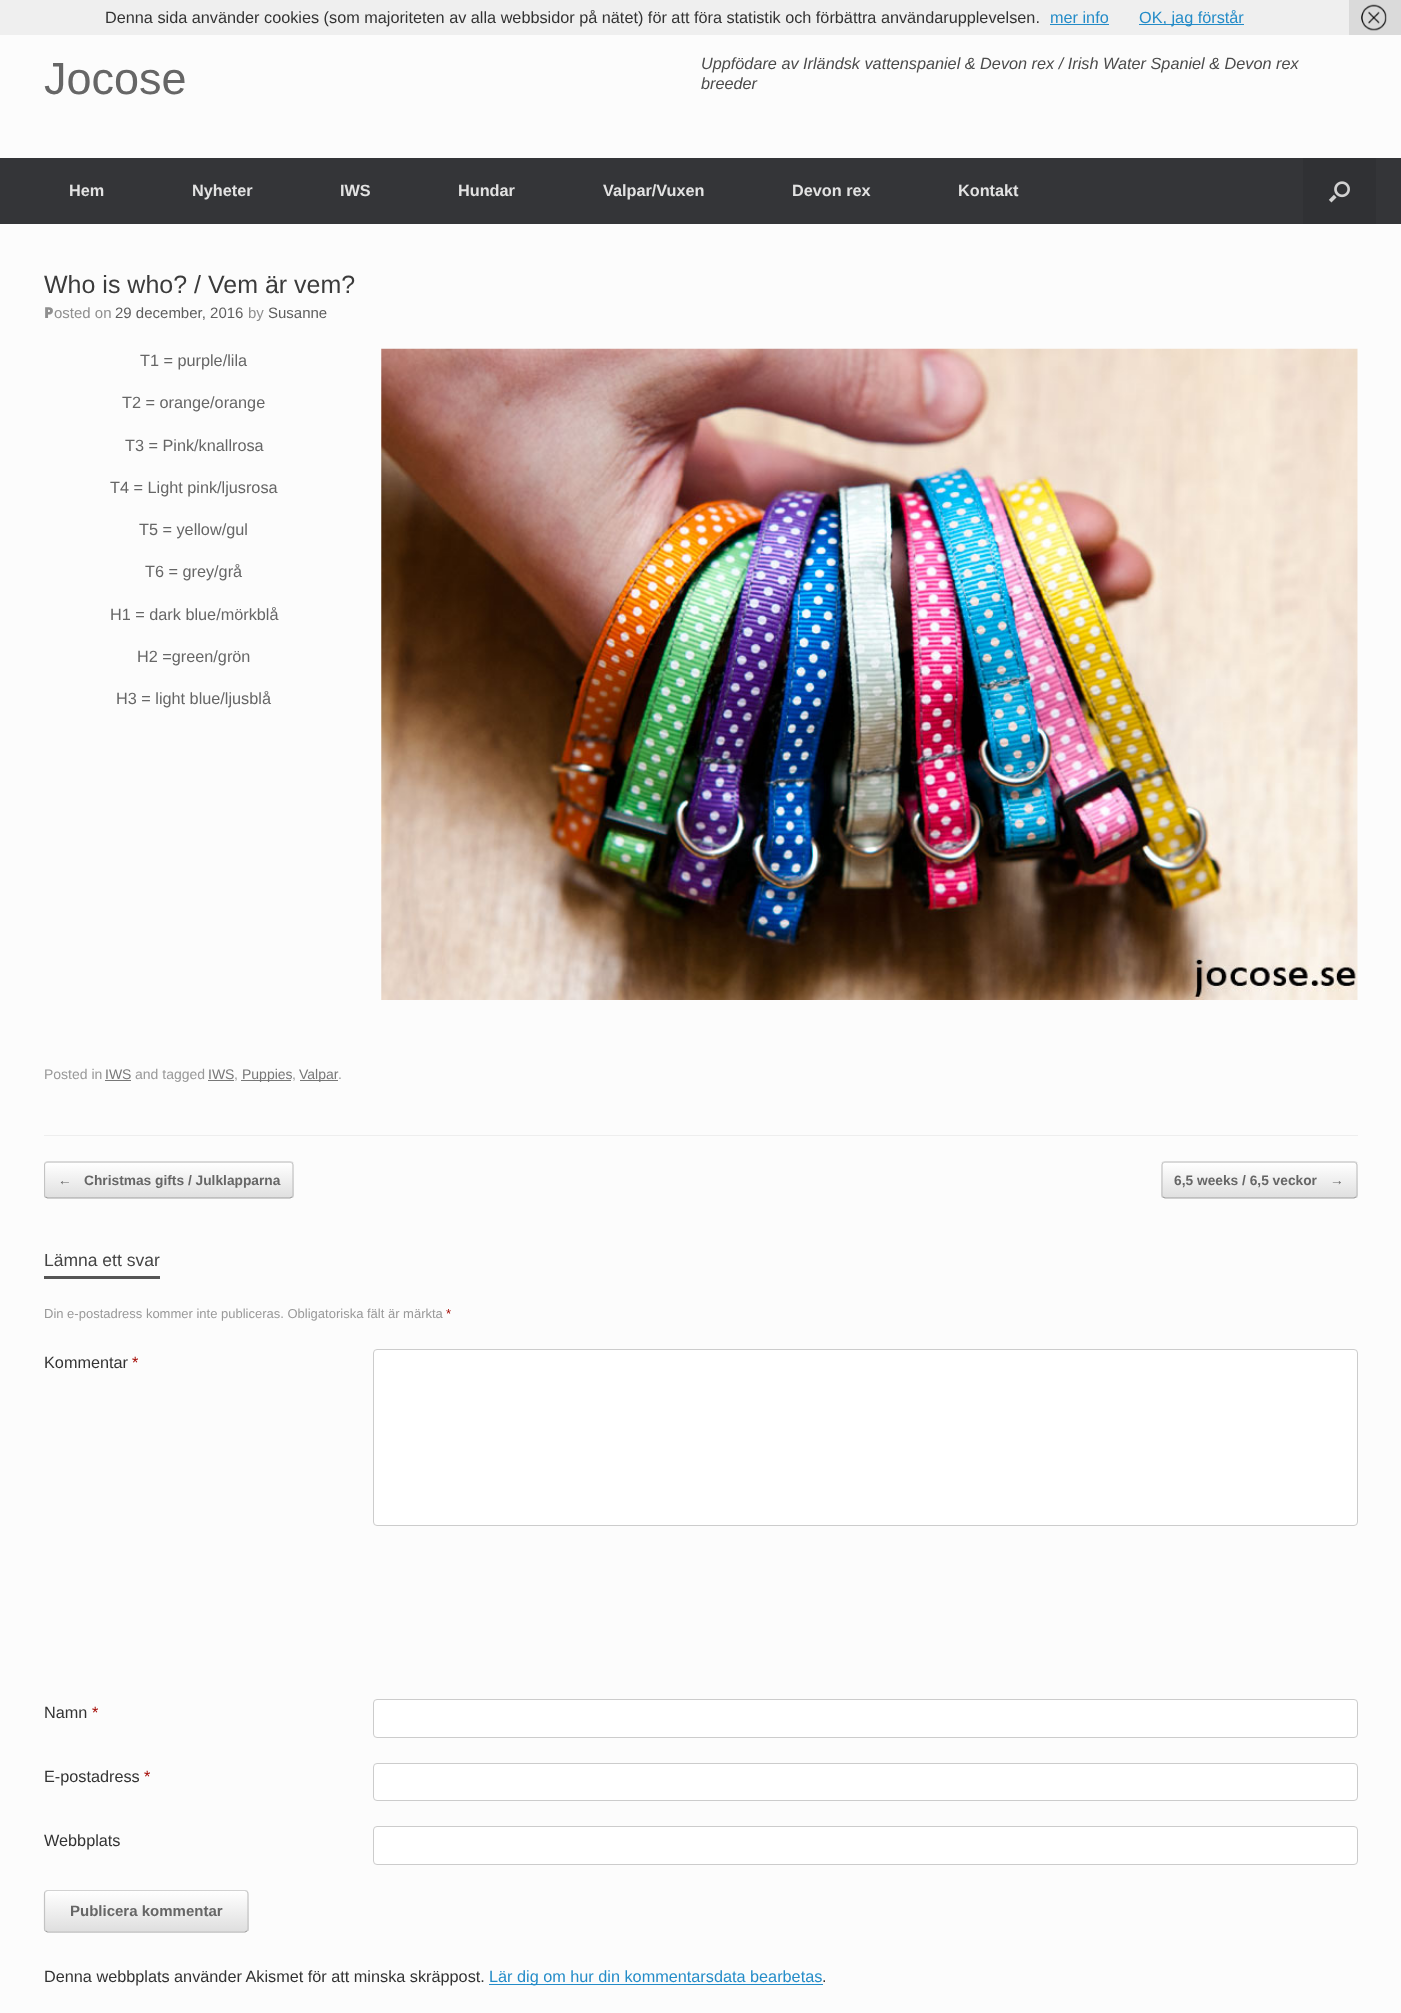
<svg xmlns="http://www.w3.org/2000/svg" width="1401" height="2013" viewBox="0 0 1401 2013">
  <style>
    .t1 { font: 16.25px Liberation Sans; fill: #333; }
    .t2 { font: 16.25px Liberation Sans; fill: #248cc8; }
    .t3 { font: 45px Liberation Sans; fill: #666; }
    .t4 { font: italic 16.25px Liberation Sans; fill: #4b4b4b; }
    .t5 { font: bold 16.25px Liberation Sans; fill: #e2e2e2; }
    .t6 { font: 25px Liberation Sans; fill: #3b3b3b; }
    .t7 { font: 900 15px Noto Sans; fill: #8f8f8f; }
    .t8 { font: 15px Liberation Sans; fill: #8f8f8f; }
    .t9 { font: 15px Liberation Sans; fill: #5e5e5e; }
    .t10 { font: 16.25px Liberation Sans; fill: #666; }
    .t11 { font: 14px Liberation Sans; fill: #999; }
    .t12 { font: 14px Liberation Sans; fill: #777; }
    .t13 { font: bold 13.75px Liberation Sans; fill: #666; }
    .t14 { font: 17.5px Liberation Sans; fill: #444; }
    .t15 { font: 13px Liberation Sans; fill: #999; }
    .t16 { font: 13px Liberation Sans; fill: #a40802; }
    .t17 { font: 16.25px Liberation Sans; fill: #a40802; }
    .t18 { font: bold 15px Liberation Sans; fill: #666; }
  </style>
  <defs>
    <clipPath id="clip1"><rect x="44" y="1161" width="250" height="38" rx="4"/></clipPath>
    <linearGradient id="g1" gradientUnits="userSpaceOnUse" x1="45" y1="1163" x2="45" y2="1128"><stop offset="0" stop-color="#dfdfdf"/><stop offset="1" stop-color="#fff"/></linearGradient>
    <linearGradient id="g2" gradientUnits="userSpaceOnUse" x1="45" y1="1198" x2="45" y2="1163"><stop offset="0" stop-color="#dfdfdf"/><stop offset="1" stop-color="#fff"/></linearGradient>
    <linearGradient id="g3" gradientUnits="userSpaceOnUse" x1="45" y1="1233" x2="45" y2="1198"><stop offset="0" stop-color="#dfdfdf"/><stop offset="1" stop-color="#fff"/></linearGradient>
    <clipPath id="clip2"><rect x="44" y="1161" width="1314" height="38"/></clipPath>
    <clipPath id="clip3"><rect x="1161" y="1161" width="197" height="38" rx="4"/></clipPath>
    <linearGradient id="g4" gradientUnits="userSpaceOnUse" x1="1163" y1="1163" x2="1163" y2="1128"><stop offset="0" stop-color="#dfdfdf"/><stop offset="1" stop-color="#fff"/></linearGradient>
    <linearGradient id="g5" gradientUnits="userSpaceOnUse" x1="1163" y1="1198" x2="1163" y2="1163"><stop offset="0" stop-color="#dfdfdf"/><stop offset="1" stop-color="#fff"/></linearGradient>
    <linearGradient id="g6" gradientUnits="userSpaceOnUse" x1="1163" y1="1233" x2="1163" y2="1198"><stop offset="0" stop-color="#dfdfdf"/><stop offset="1" stop-color="#fff"/></linearGradient>
    <clipPath id="clip4"><rect x="44" y="1890" width="205" height="43" rx="4"/></clipPath>
    <linearGradient id="g7" gradientUnits="userSpaceOnUse" x1="45" y1="1891" x2="45" y2="1851"><stop offset="0" stop-color="#dfdfdf"/><stop offset="1" stop-color="#fff"/></linearGradient>
    <linearGradient id="g8" gradientUnits="userSpaceOnUse" x1="45" y1="1931" x2="45" y2="1891"><stop offset="0" stop-color="#dfdfdf"/><stop offset="1" stop-color="#fff"/></linearGradient>
    <linearGradient id="g9" gradientUnits="userSpaceOnUse" x1="45" y1="1971" x2="45" y2="1931"><stop offset="0" stop-color="#dfdfdf"/><stop offset="1" stop-color="#fff"/></linearGradient>
  </defs>
  <rect width="100%" height="100%" fill="#fcfcfc"/>
  <rect x="0" y="0" width="1349" height="35" fill="#efefef"/>
  <text x="105" y="23" class="t1">Denna sida använder cookies (som majoriteten av alla webbsidor på nätet) för att föra statistik och förbättra användarupplevelsen.</text>
  <text x="1050" y="23" class="t2">mer info</text>
  <rect x="1050" y="24" width="59" height="1" fill="#248cc8"/>
  <rect x="1139" y="24" width="105" height="1" fill="#248cc8"/>
  <text x="1139" y="23" class="t2">OK, jag förstår</text>
  <rect x="1349" y="0" width="52" height="35" fill="#dadada"/>
  <image x="1361" y="4" width="26" height="27" href="images/1.png"/>
  <text x="44" y="94" class="t3">Jocose</text>
  <text x="701" y="69" class="t4">Uppfödare av Irländsk vattenspaniel &amp; Devon rex / Irish Water Spaniel &amp; Devon rex</text>
  <text x="701" y="89" class="t4">breeder</text>
  <rect x="0" y="158" width="1401" height="66" fill="#343538"/>
  <text x="69" y="196" class="t5">Hem</text>
  <text x="192" y="196" class="t5">Nyheter</text>
  <text x="340" y="196" class="t5">IWS</text>
  <text x="458" y="196" class="t5">Hundar</text>
  <text x="603" y="196" class="t5">Valpar/Vuxen</text>
  <text x="792" y="196" class="t5">Devon rex</text>
  <text x="958" y="196" class="t5">Kontakt</text>
  <rect x="1303" y="158" width="73" height="66" fill="#303134"/>
  <image x="1328" y="181" width="22" height="22" href="images/2.png"/>
  <rect x="44" y="1135" width="1314" height="1" fill="#eee"/>
  <text x="44" y="293" class="t6">Who is who? / Vem är vem?</text>
  <text x="44" y="318" class="t7">P</text>
  <text x="54" y="318" class="t8">osted on</text>
  <text x="115" y="318" class="t9">29 december, 2016</text>
  <text x="248" y="318" class="t8">by</text>
  <text x="268" y="318" class="t9">Susanne</text>
  <text x="140" y="366" class="t10">T1 = purple/lila</text>
  <text x="122" y="408" class="t10">T2 = orange/orange</text>
  <text x="125" y="451" class="t10">T3 = Pink/knallrosa</text>
  <text x="110" y="493" class="t10">T4 = Light pink/ljusrosa</text>
  <text x="139" y="535" class="t10">T5 = yellow/gul</text>
  <text x="145" y="577" class="t10">T6 = grey/grå</text>
  <text x="110" y="620" class="t10">H1 = dark blue/mörkblå</text>
  <text x="137" y="662" class="t10">H2 =green/grön</text>
  <text x="116" y="704" class="t10">H3 = light blue/ljusblå</text>
  <image x="381" y="348" width="977" height="652" href="images/3.png"/>
  <text x="44" y="1079" class="t11">Posted in</text>
  <text x="105" y="1079" class="t12">IWS</text>
  <rect x="105" y="1080" width="26" height="1" fill="#777"/>
  <text x="135" y="1079" class="t11">and tagged</text>
  <text x="208" y="1079" class="t12">IWS</text>
  <rect x="208" y="1080" width="26" height="1" fill="#777"/>
  <text x="234" y="1079" class="t11">,</text>
  <rect x="241" y="1080" width="50" height="1" fill="#777"/>
  <text x="242" y="1079" class="t12">Puppies</text>
  <text x="292" y="1079" class="t11">,</text>
  <rect x="300" y="1080" width="38" height="1" fill="#777"/>
  <text x="299" y="1079" class="t12">Valpar</text>
  <text x="338" y="1079" class="t11">.</text>
  <g clip-path="url(#clip1)">
    <rect x="44" y="1161" width="250" height="2" fill="url(#g1)"/>
    <rect x="44" y="1163" width="250" height="35" fill="url(#g2)"/>
    <rect x="44" y="1198" width="250" height="1" fill="url(#g3)"/>
  </g>
  <path d="M45.5 1163L47.5 1162H290L292 1163" fill="none" stroke="#d2d2d2" stroke-width="1.2"/>
  <path d="M292 1163C293 1163.5 293 1164 293 1165V1195C293 1196 293 1196.5 292 1197" fill="none" stroke="#c3c3c3" stroke-width="1.2"/>
  <path d="M292 1197L290 1198H47.5L45.5 1197" fill="none" stroke="#9f9f9f" stroke-width="1.2"/>
  <g clip-path="url(#clip2)">
    <path d="M45.5 1197C44.5 1196.5 44.5 1196 44.5 1195V1165C44.5 1164 44.5 1163.5 45.5 1163" fill="none" stroke="#c3c3c3" stroke-width="1.2"/>
  </g>
  <text x="58" y="1185" class="t13">←</text>
  <text x="84" y="1185" class="t13">Christmas gifts / Julklapparna</text>
  <g clip-path="url(#clip3)">
    <rect x="1161" y="1161" width="197" height="2" fill="url(#g4)"/>
    <rect x="1161" y="1163" width="197" height="35" fill="url(#g5)"/>
    <rect x="1161" y="1198" width="197" height="1" fill="url(#g6)"/>
  </g>
  <path d="M1163 1163L1165 1162H1354L1356 1163" fill="none" stroke="#d2d2d2" stroke-width="1.2"/>
  <path d="M1356 1163C1356.5 1163.5 1357 1164 1357 1165V1195C1357 1196 1356.5 1196.5 1356 1197" fill="none" stroke="#c3c3c3" stroke-width="1.2"/>
  <path d="M1356 1197L1354 1198H1165L1163 1197" fill="none" stroke="#9f9f9f" stroke-width="1.2"/>
  <path d="M1163 1197C1162 1196.5 1162 1196 1162 1195V1165C1162 1164 1162 1163.5 1163 1163" fill="none" stroke="#c3c3c3" stroke-width="1.2"/>
  <text x="1174" y="1185" class="t13">6,5 weeks / 6,5 veckor</text>
  <text x="1330" y="1185" class="t13">→</text>
  <rect x="44" y="1276" width="116" height="3" fill="#555"/>
  <text x="44" y="1266" class="t14">Lämna ett svar</text>
  <text x="44" y="1318" class="t15">Din e-postadress kommer inte publiceras. Obligatoriska fält är märkta</text>
  <text x="446" y="1318" class="t16">*</text>
  <text x="44" y="1368" class="t1">Kommentar</text>
  <text x="132" y="1368" class="t17">*</text>
  <rect x="373.5" y="1349.5" width="984" height="176" rx="3.5" fill="#fff" stroke="#ccc"/>
  <text x="44" y="1718" class="t1">Namn</text>
  <text x="92" y="1718" class="t17">*</text>
  <rect x="373.5" y="1699.5" width="984" height="38" rx="3.5" fill="#fff" stroke="#ccc"/>
  <text x="44" y="1782" class="t1">E-postadress</text>
  <text x="144" y="1782" class="t17">*</text>
  <rect x="373.5" y="1763.5" width="984" height="37" rx="3.5" fill="#fff" stroke="#ccc"/>
  <text x="44" y="1846" class="t1">Webbplats</text>
  <rect x="373.5" y="1826.5" width="984" height="38" rx="3.5" fill="#fff" stroke="#ccc"/>
  <g clip-path="url(#clip4)">
    <rect x="44" y="1890" width="205" height="1" fill="url(#g7)"/>
    <rect x="44" y="1891" width="205" height="40" fill="url(#g8)"/>
    <rect x="44" y="1931" width="205" height="2" fill="url(#g9)"/>
  </g>
  <path d="M45.5 1891.5L47.5 1890.5H245L247 1891.5" fill="none" stroke="#d2d2d2" stroke-width="1.2"/>
  <path d="M247 1891.5C248 1892 248 1893 248 1894V1929C248 1929.5 248 1930.5 247 1931" fill="none" stroke="#c3c3c3" stroke-width="1.2"/>
  <path d="M247 1931L245 1932H47.5L45.5 1931" fill="none" stroke="#9f9f9f" stroke-width="1.2"/>
  <path d="M45.5 1931C44.5 1930.5 44.5 1929.5 44.5 1929V1894C44.5 1893 44.5 1892 45.5 1891.5" fill="none" stroke="#c3c3c3" stroke-width="1.2"/>
  <text x="70" y="1916" class="t18">Publicera kommentar</text>
  <text x="44" y="1982" class="t1">Denna webbplats använder Akismet för att minska skräppost.</text>
  <rect x="489" y="1984" width="334" height="1" fill="#248cc8"/>
  <text x="489" y="1982" class="t2">Lär dig om hur din kommentarsdata bearbetas</text>
  <text x="822" y="1982" class="t1">.</text>
</svg>
